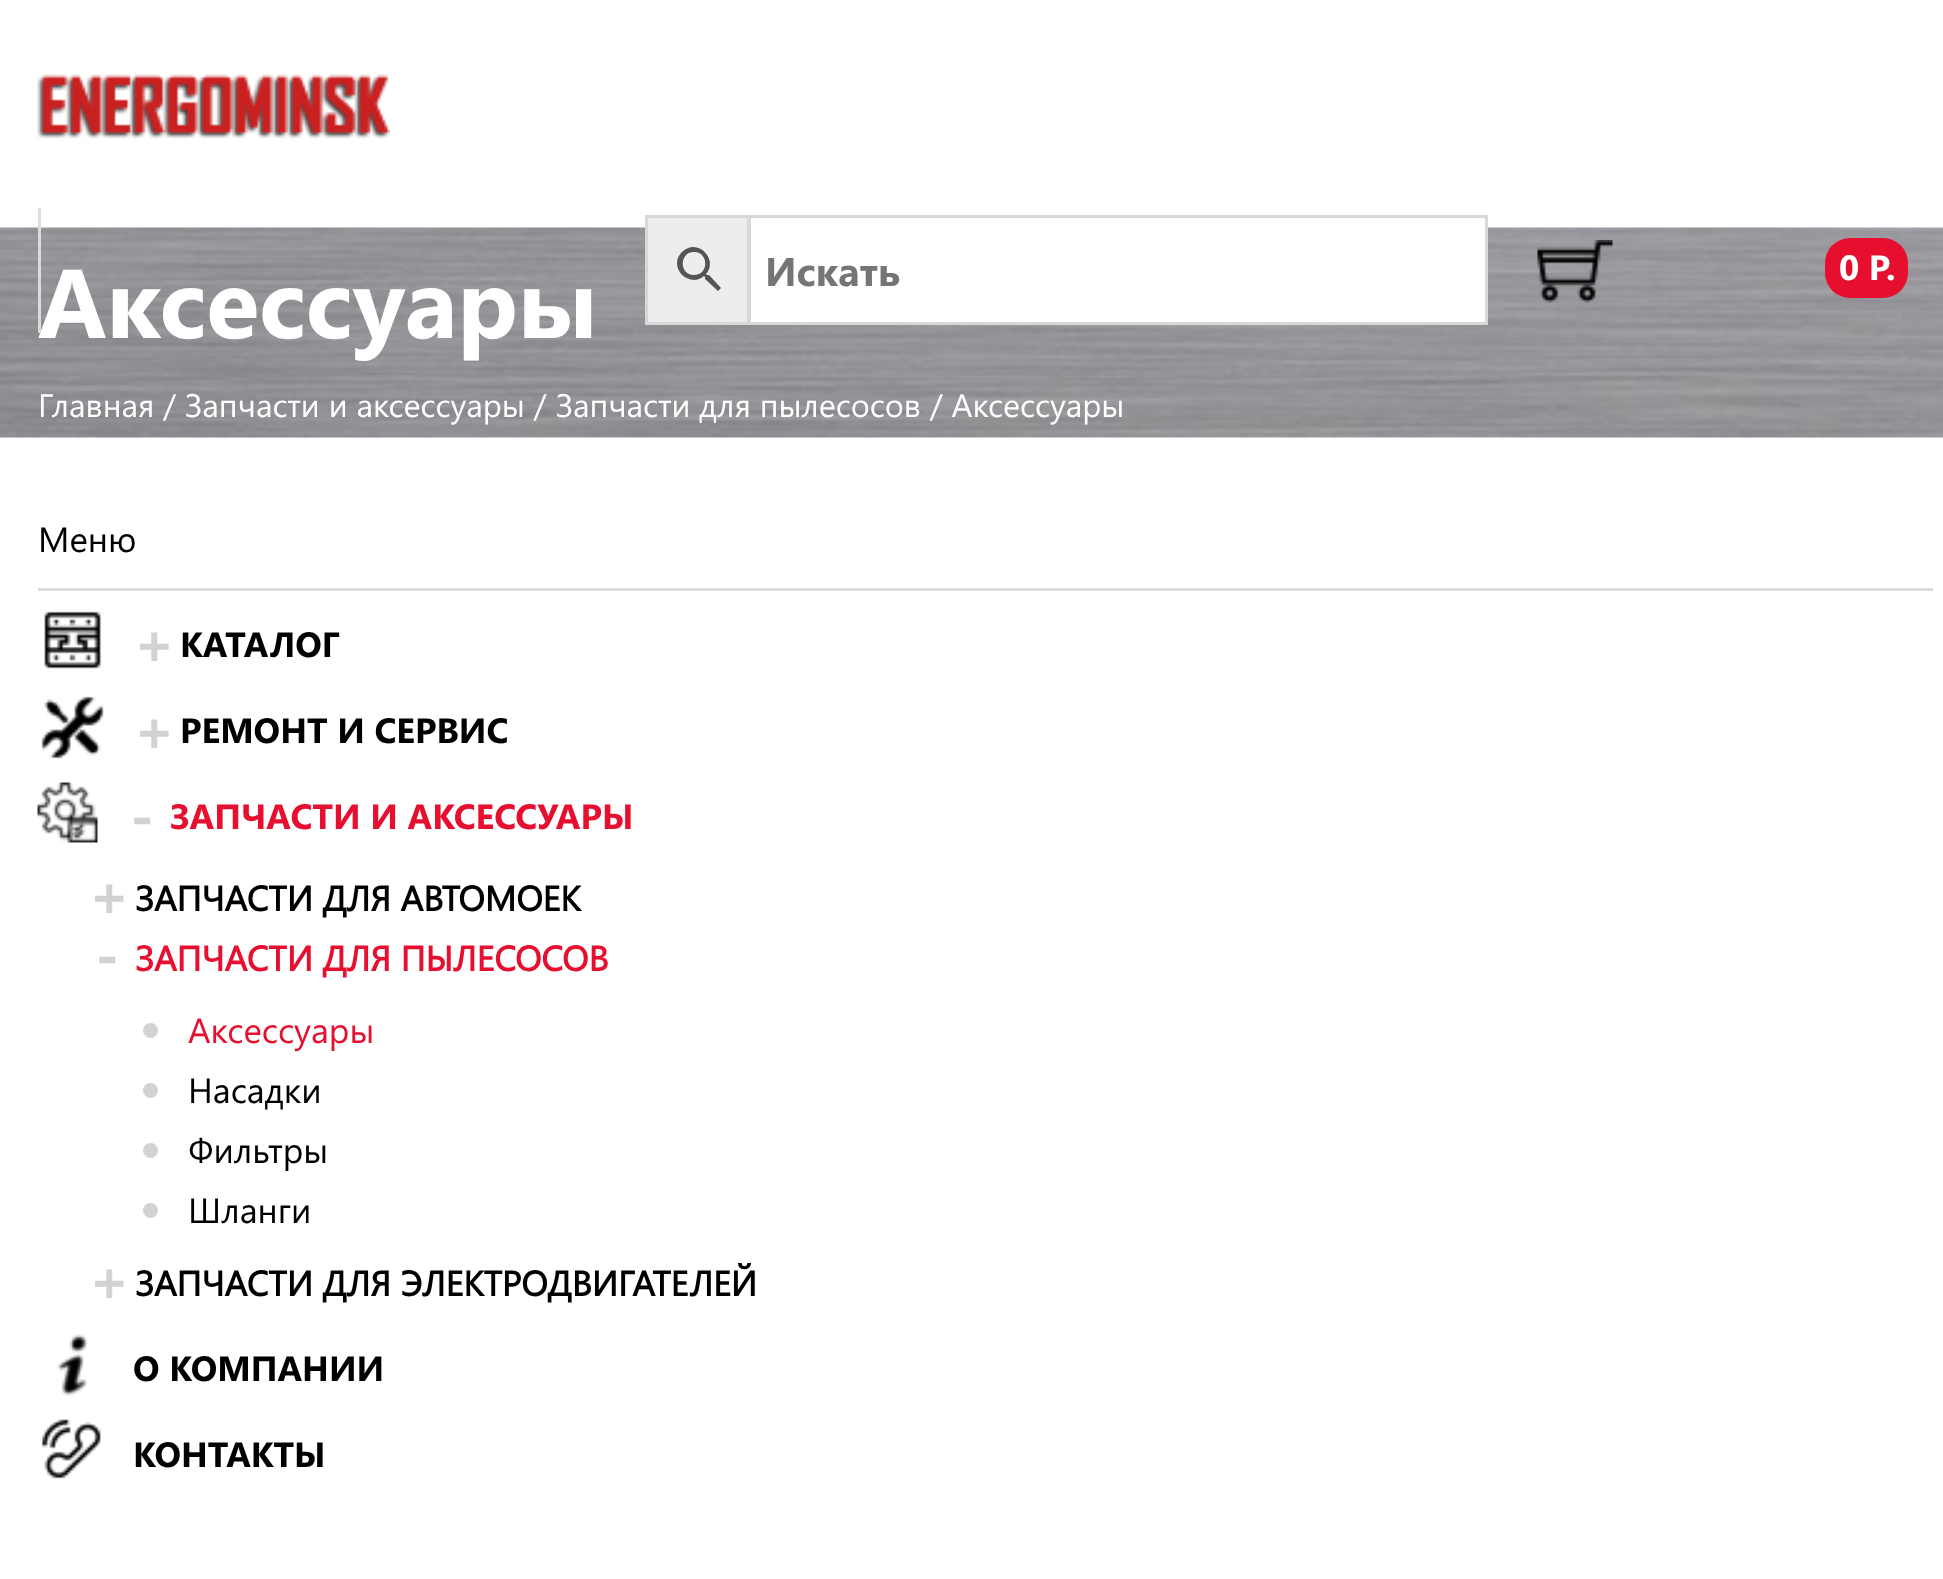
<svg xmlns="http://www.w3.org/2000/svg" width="1943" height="1579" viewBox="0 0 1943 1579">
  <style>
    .t1 { font: bold 97.5px Segoe UI; fill: #fff; }
    .t2 { font: 32.5px Segoe UI; fill: #fff; }
    .t3 { font: 35px Segoe UI; fill: #000; }
    .t4 { font: bold 60px Segoe UI; fill: #d2d2d2; }
    .t5 { font: bold 35px Segoe UI; fill: #000; }
    .t6 { font: bold 35px Segoe UI; fill: #e60f2f; }
    .t7 { font: bold 35px 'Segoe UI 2'; fill: #000; }
    .t8 { font: bold 35px 'Segoe UI 2'; fill: #e60f2f; }
    .t9 { font: 35px Segoe UI; fill: #e60f2f; }
    .t10 { font: bold 40px Segoe UI; fill: #757575; }
    .t11 { font: bold 35px Segoe UI; fill: #fff; }
  </style>
  <rect width="100%" height="100%" fill="#fff"/>
  <image x="0" y="227" width="1943" height="211" href="images/1.png"/>
  <text x="38" y="338" class="t1">Аксессуары</text>
  <text x="38" y="417" class="t2">Главная / Запчасти и аксессуары / Запчасти для пылесосов / Аксессуары</text>
  <rect x="38" y="588" width="1895" height="3" fill="#dcdcdc"/>
  <text x="38" y="552" class="t3">Меню</text>
  <image x="44" y="611" width="57" height="58" href="images/2.png"/>
  <text x="133" y="664" class="t4">+</text>
  <text x="180" y="657" class="t5">КАТАЛОГ</text>
  <image x="41" y="696" width="63" height="63" href="images/3.png"/>
  <text x="133" y="751" class="t4">+</text>
  <text x="180" y="743" class="t5">РЕМОНТ И СЕРВИС</text>
  <image x="37" y="782" width="61" height="61" href="images/4.png"/>
  <text x="130" y="837" class="t4">-</text>
  <text x="170" y="829" class="t6">ЗАПЧАСТИ И АКСЕССУАРЫ</text>
  <text x="88" y="916" class="t4">+</text>
  <text x="135" y="911" class="t7">ЗАПЧАСТИ ДЛЯ АВТОМОЕК</text>
  <text x="95" y="976" class="t4">-</text>
  <text x="135" y="971" class="t8">ЗАПЧАСТИ ДЛЯ ПЫЛЕСОСОВ</text>
  <circle cx="150.5" cy="1030.5" r="7.5" fill="#d2d2d2"/>
  <text x="188" y="1043" class="t9">Аксессуары</text>
  <circle cx="150.5" cy="1090.5" r="7.5" fill="#d2d2d2"/>
  <text x="188" y="1103" class="t3">Насадки</text>
  <circle cx="150.5" cy="1150.5" r="7.5" fill="#d2d2d2"/>
  <text x="188" y="1163" class="t3">Фильтры</text>
  <circle cx="150.5" cy="1210.5" r="7.5" fill="#d2d2d2"/>
  <text x="188" y="1223" class="t3">Шланги</text>
  <text x="88" y="1301" class="t4">+</text>
  <text x="135" y="1296" class="t7">ЗАПЧАСТИ ДЛЯ ЭЛЕКТРОДВИГАТЕЛЕЙ</text>
  <image x="57" y="1334" width="31" height="62" href="images/5.png"/>
  <text x="133" y="1381" class="t5">О КОМПАНИИ</text>
  <image x="41" y="1419" width="60" height="60" href="images/6.png"/>
  <text x="133" y="1467" class="t5">КОНТАКТЫ</text>
  <image x="37" y="74" width="353" height="65" href="images/7.png"/>
  <rect x="38" y="208" width="3" height="125" fill="#dcdcdc"/>
  <rect x="646.5" y="216.5" width="102" height="107" fill="#ededed" stroke="#d8d8d8" stroke-width="3"/>
  <path d="M709 275H707L706 274C719 259 697 237 682 252C667 267 689 289 704 276L705 277V279L718 291L721 288ZM694 275C679 275 679 252 694 252C709 252 709 275 694 275Z" fill="#555"/>
  <rect x="751" y="227" width="734" height="95" fill="#fff"/>
  <rect x="749.5" y="216.5" width="737" height="107" fill="none" stroke="#d8d8d8" stroke-width="3"/>
  <text x="765" y="286" class="t10">Искать</text>
  <image x="1537" y="240" width="76" height="63" href="images/8.png"/>
  <rect x="1825" y="238" width="83" height="60" rx="25" fill="#e60f2f"/>
  <text x="1839" y="280" class="t11">0 Р.</text>
</svg>
